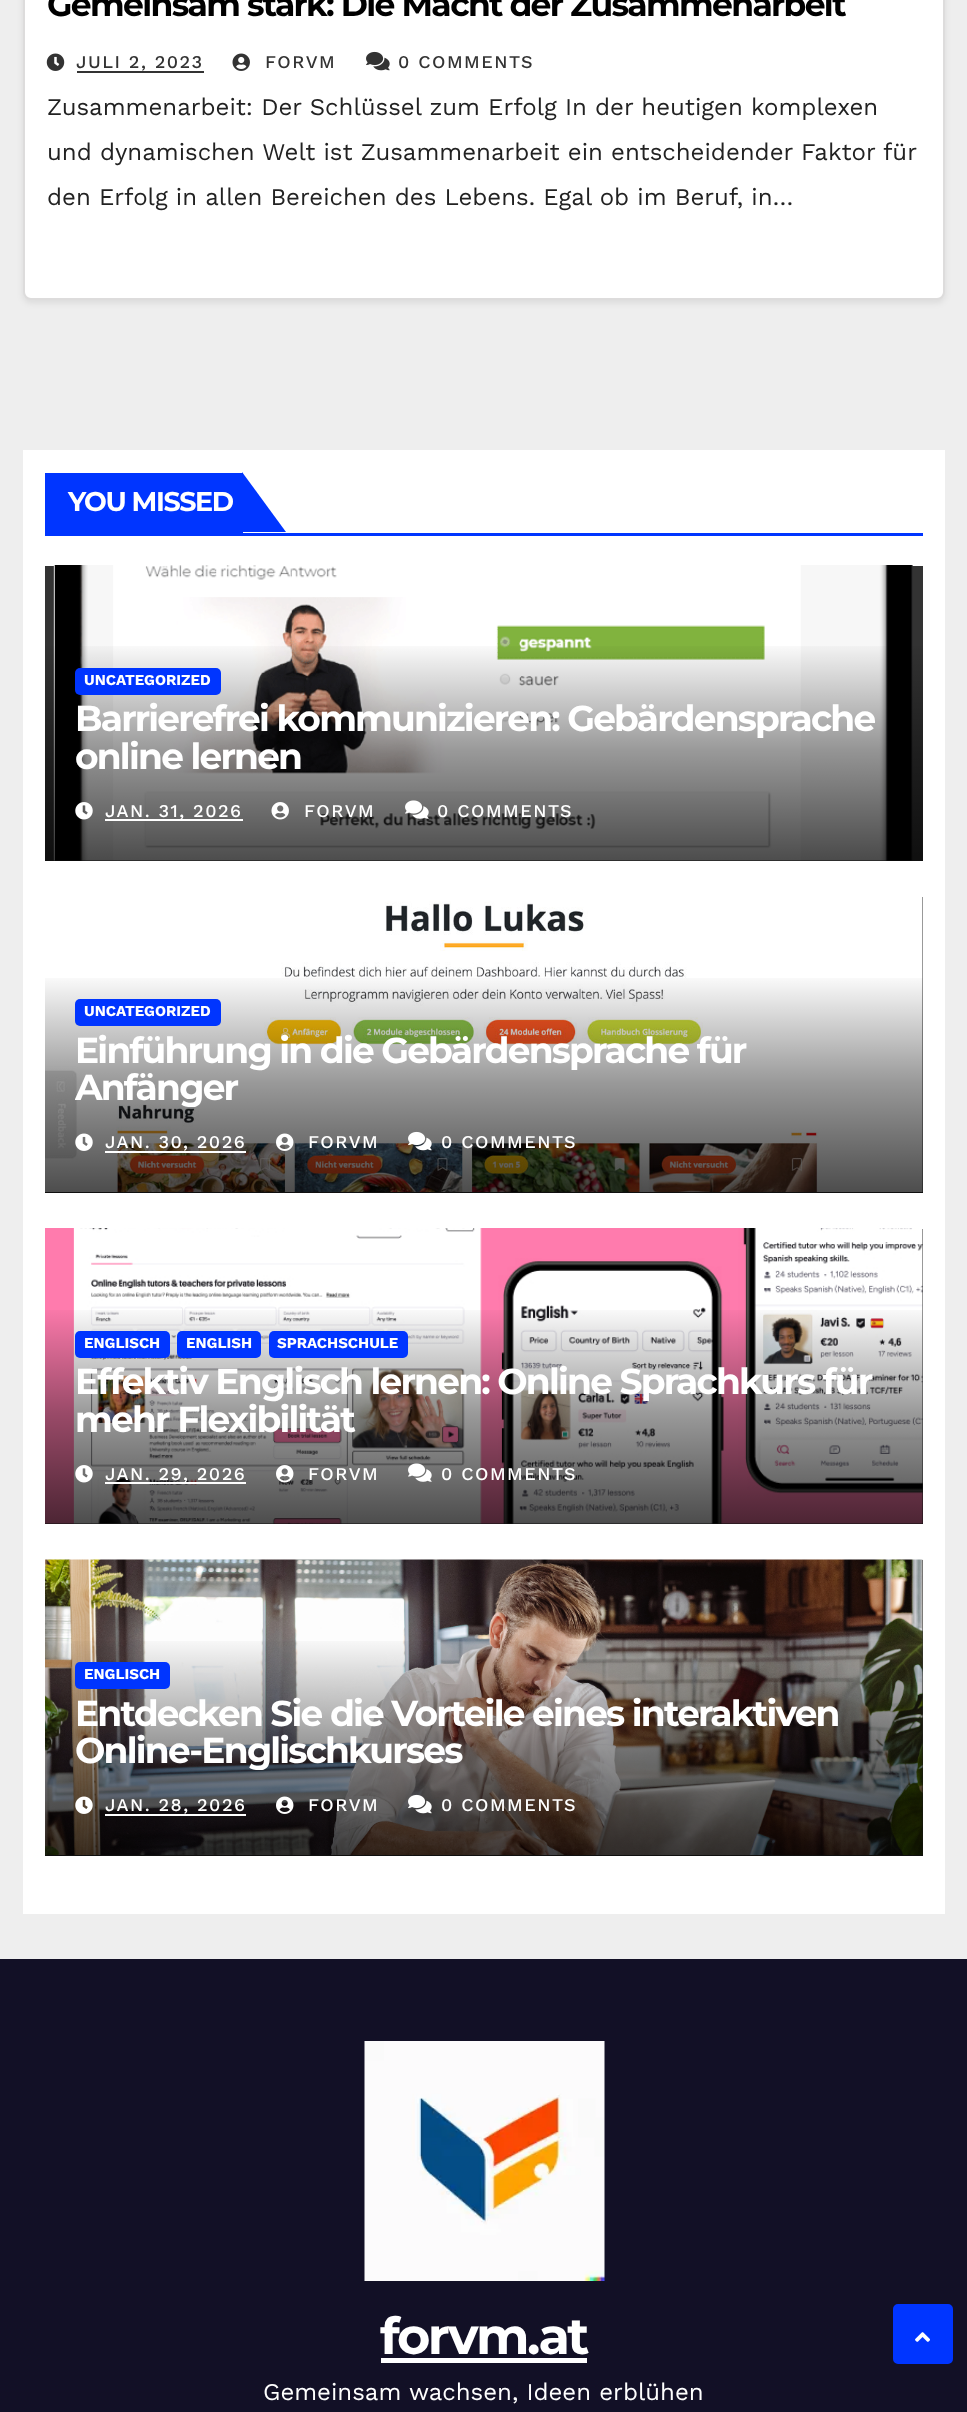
<svg xmlns="http://www.w3.org/2000/svg" width="967" height="2412" viewBox="0 0 967 2412">
  <style>
    .t1 { font: bold 33px Montserrat; letter-spacing: -1.65px; fill: #000; }
    .t2 { font: 500 18px Work Sans; letter-spacing: 1.5px; fill: #333; }
    .t3 { font: 24px Work Sans; fill: #222; }
    .t4 { font: bold 27px Montserrat; letter-spacing: -1.4px; fill: #fff; }
    .t5 { font: bold 15px Work Sans; fill: #fff; }
    .t6 { font: bold 36px Montserrat; letter-spacing: -1.8px; fill: #fff; }
    .t7 { font: 500 18px Work Sans; letter-spacing: 1.5px; fill: #fff; }
    .t8 { font: bold 51px Montserrat; letter-spacing: -2.5px; fill: #fff; }
    .t9 { font: 24px Work Sans; fill: #fff; }
  </style>
  <defs>
    <linearGradient id="g1" gradientUnits="userSpaceOnUse" x1="484" y1="640" x2="484" y2="861"><stop offset="0" stop-color="#000" stop-opacity="0"/><stop offset="0.5" stop-color="#000" stop-opacity="0.4"/><stop offset="1" stop-color="#000" stop-opacity="0.7"/></linearGradient>
    <linearGradient id="g2" gradientUnits="userSpaceOnUse" x1="484" y1="972" x2="484" y2="1193"><stop offset="0" stop-color="#000" stop-opacity="0"/><stop offset="0.5" stop-color="#000" stop-opacity="0.4"/><stop offset="1" stop-color="#000" stop-opacity="0.7"/></linearGradient>
    <clipPath id="clip1"><rect x="75" y="1032" width="818" height="75"/></clipPath>
    <linearGradient id="g3" gradientUnits="userSpaceOnUse" x1="484" y1="1304" x2="484" y2="1524"><stop offset="0" stop-color="#000" stop-opacity="0"/><stop offset="0.5" stop-color="#000" stop-opacity="0.4"/><stop offset="1" stop-color="#000" stop-opacity="0.7"/></linearGradient>
    <linearGradient id="g4" gradientUnits="userSpaceOnUse" x1="484" y1="1635" x2="484" y2="1856"><stop offset="0" stop-color="#000" stop-opacity="0"/><stop offset="0.5" stop-color="#000" stop-opacity="0.4"/><stop offset="1" stop-color="#000" stop-opacity="0.7"/></linearGradient>
    <clipPath id="clip2"><rect x="75" y="1695" width="818" height="75"/></clipPath>
  </defs>
  <rect width="100%" height="100%" fill="#eee"/>
  <rect x="23" y="-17" width="922" height="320" rx="8" fill="#00000014" filter="blur(3px)"/>
  <rect x="24" y="-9" width="920" height="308" rx="7" fill="#fff" stroke="#dddcdc" stroke-width="2"/>
  <text x="47" y="16" class="t1">Gemeinsam stark: Die Macht der Zusammenarbeit</text>
  <image x="46" y="53" width="19" height="18" href="images/1.png"/>
  <text x="76" y="68" class="t2">JULI 2, 2023</text>
  <rect x="77" y="71" width="127" height="2" fill="#333"/>
  <image x="232" y="53" width="18" height="18" href="images/2.png"/>
  <text x="265" y="68" class="t2">FORVM</text>
  <image x="366" y="51" width="24" height="20" href="images/3.png"/>
  <text x="398" y="68" class="t2">0 COMMENTS</text>
  <text x="47" y="115" class="t3">Zusammenarbeit: Der Schlüssel zum Erfolg In der heutigen komplexen</text>
  <text x="47" y="160" class="t3">und dynamischen Welt ist Zusammenarbeit ein entscheidender Faktor für</text>
  <text x="47" y="205" class="t3">den Erfolg in allen Bereichen des Lebens. Egal ob im Beruf, in…</text>
  <rect x="23" y="450" width="922" height="1464" fill="#fff"/>
  <rect x="45" y="533" width="878" height="3" fill="#0035ff"/>
  <rect x="45" y="473" width="198" height="60" fill="#0035ff"/>
  <text x="68" y="511" class="t4">YOU MISSED</text>
  <path d="M242 532V472L286 532Z" fill="#0035ff"/>
  <rect x="45" y="566" width="878" height="295" fill="#333"/>
  <image x="53" y="565" width="860" height="296" href="images/4.png"/>
  <rect x="45" y="646" width="878" height="215" fill="url(#g1)"/>
  <rect x="75" y="668" width="146" height="27" rx="5" fill="#0035ff"/>
  <text x="84" y="685" class="t5">UNCATEGORIZED</text>
  <text x="75" y="731" class="t6">Barrierefrei kommunizieren: Gebärdensprache</text>
  <text x="75" y="769" class="t6">online lernen</text>
  <image x="75" y="802" width="18" height="18" href="images/5.png"/>
  <rect x="105" y="819" width="138" height="2" fill="#fff"/>
  <text x="105" y="817" class="t7">JAN. 31, 2026</text>
  <image x="271" y="802" width="18" height="18" href="images/6.png"/>
  <text x="304" y="817" class="t7">FORVM</text>
  <image x="405" y="800" width="24" height="19" href="images/7.png"/>
  <text x="437" y="817" class="t7">0 COMMENTS</text>
  <rect x="45" y="897" width="878" height="296" fill="#333"/>
  <image x="45" y="897" width="878" height="295" href="images/8.png"/>
  <rect x="45" y="978" width="878" height="215" fill="url(#g2)"/>
  <rect x="75" y="999" width="146" height="27" rx="5" fill="#0035ff"/>
  <text x="84" y="1016" class="t5">UNCATEGORIZED</text>
  <text x="75" y="1063" class="t6">Einführung in die Gebärdensprache für</text>
  <g clip-path="url(#clip1)">
    <text x="75" y="1100" class="t6">Anfänger</text>
  </g>
  <image x="75" y="1133" width="18" height="18" href="images/9.png"/>
  <text x="105" y="1148" class="t7">JAN. 30, 2026</text>
  <rect x="105" y="1151" width="141" height="2" fill="#fff"/>
  <image x="276" y="1133" width="18" height="18" href="images/10.png"/>
  <text x="308" y="1148" class="t7">FORVM</text>
  <image x="408" y="1131" width="24" height="20" href="images/11.png"/>
  <text x="441" y="1148" class="t7">0 COMMENTS</text>
  <rect x="45" y="1229" width="878" height="295" fill="#333"/>
  <image x="45" y="1228" width="878" height="296" href="images/12.png"/>
  <rect x="45" y="1310" width="878" height="214" fill="url(#g3)"/>
  <rect x="75" y="1331" width="95" height="27" rx="5" fill="#0035ff"/>
  <text x="84" y="1348" class="t5">ENGLISCH</text>
  <rect x="177" y="1331" width="84" height="27" rx="5" fill="#0035ff"/>
  <text x="186" y="1348" class="t5">ENGLISH</text>
  <rect x="269" y="1331" width="139" height="27" rx="5" fill="#0035ff"/>
  <text x="277" y="1348" class="t5">SPRACHSCHULE</text>
  <text x="75" y="1394" class="t6">Effektiv Englisch lernen: Online Sprachkurs für</text>
  <text x="75" y="1432" class="t6">mehr Flexibilität</text>
  <image x="75" y="1465" width="18" height="18" href="images/13.png"/>
  <rect x="105" y="1482" width="141" height="2" fill="#fff"/>
  <text x="105" y="1480" class="t7">JAN. 29, 2026</text>
  <image x="276" y="1465" width="18" height="18" href="images/14.png"/>
  <text x="308" y="1480" class="t7">FORVM</text>
  <image x="408" y="1463" width="24" height="19" href="images/15.png"/>
  <text x="441" y="1480" class="t7">0 COMMENTS</text>
  <rect x="45" y="1560" width="878" height="296" fill="#333"/>
  <image x="45" y="1559" width="878" height="296" href="images/16.png"/>
  <rect x="45" y="1641" width="878" height="215" fill="url(#g4)"/>
  <rect x="75" y="1662" width="95" height="27" rx="5" fill="#0035ff"/>
  <text x="84" y="1679" class="t5">ENGLISCH</text>
  <text x="75" y="1726" class="t6">Entdecken Sie die Vorteile eines interaktiven</text>
  <g clip-path="url(#clip2)">
    <text x="75" y="1763" class="t6">Online-Englischkurses</text>
  </g>
  <image x="75" y="1796" width="18" height="18" href="images/17.png"/>
  <text x="105" y="1811" class="t7">JAN. 28, 2026</text>
  <rect x="105" y="1814" width="141" height="2" fill="#fff"/>
  <image x="276" y="1796" width="18" height="18" href="images/18.png"/>
  <text x="308" y="1811" class="t7">FORVM</text>
  <image x="408" y="1794" width="24" height="20" href="images/19.png"/>
  <text x="441" y="1811" class="t7">0 COMMENTS</text>
  <rect x="0" y="1959" width="967" height="453" fill="#121026"/>
  <image x="364" y="2041" width="241" height="240" href="images/20.png"/>
  <text x="380" y="2354" class="t8">forvm.at</text>
  <rect x="381" y="2358" width="206" height="5" fill="#fff"/>
  <text x="263" y="2400" class="t9">Gemeinsam wachsen, Ideen erblühen</text>
  <rect x="894.5" y="2305.5" width="57" height="57" rx="3.5" fill="#0035ff" stroke="#0035ff" stroke-width="3"/>
  <image x="915" y="2332" width="15" height="10" href="images/21.png"/>
</svg>
